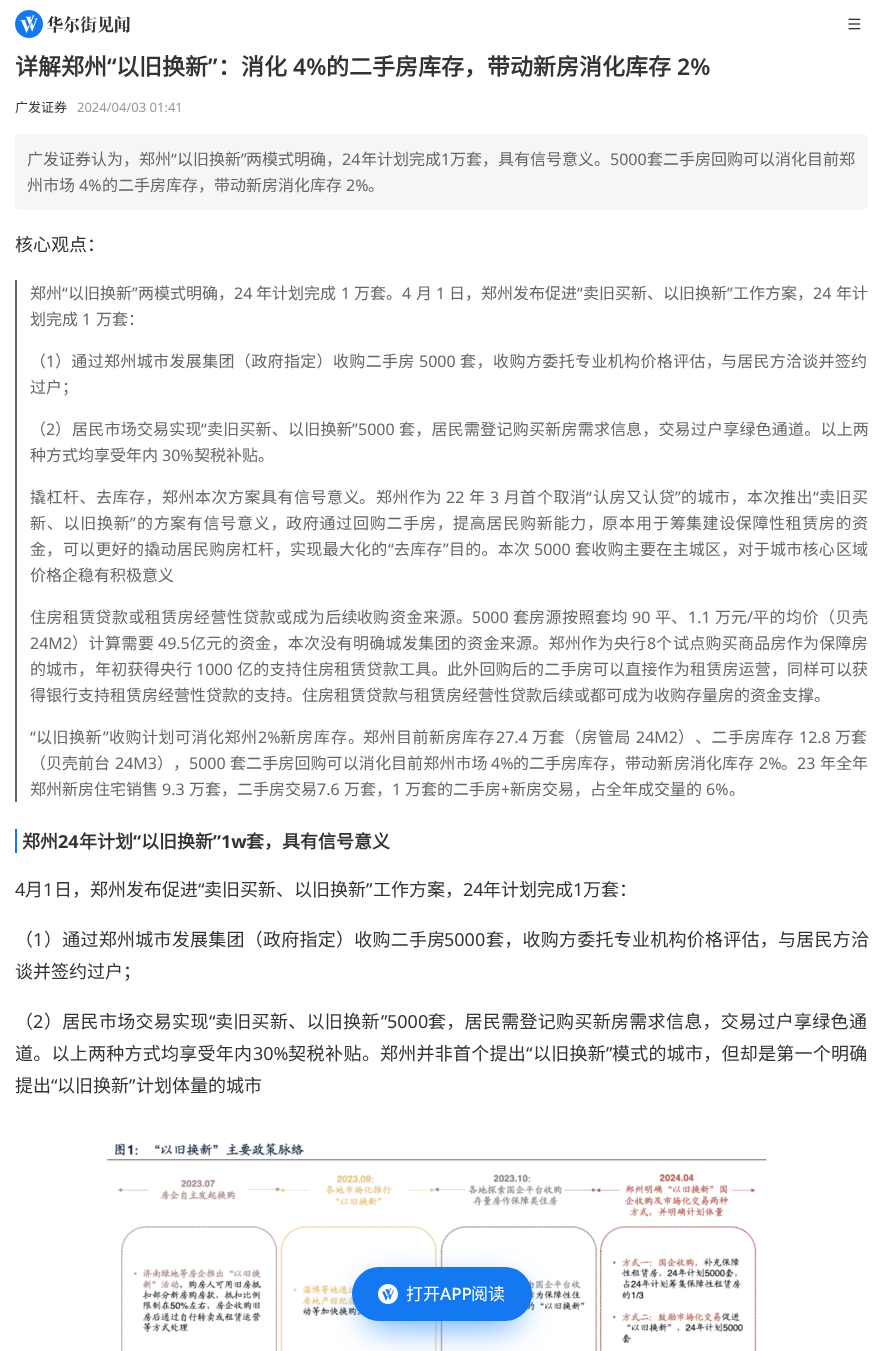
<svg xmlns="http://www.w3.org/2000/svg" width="883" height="1351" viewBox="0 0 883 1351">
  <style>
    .t1 { font: bold 23px Noto Sans CJK SC; fill: #333; }
    .t2 { font: 600 23px Noto Sans; fill: #333; }
    .t3 { font: 13px Noto Sans CJK SC; fill: #333; }
    .t4 { font: 13px Noto Sans; fill: #999; }
    .t5 { font: 16px Noto Sans CJK SC; fill: #666; }
    .t6 { font: 16px Noto Sans; fill: #666; }
    .t7 { font: 18px Noto Sans CJK SC; fill: #333; }
    .t8 { font: 16px Noto Sans CJK SC; letter-spacing: 0.35px; fill: #666; }
    .t9 { font: 16px Noto Sans CJK SC; letter-spacing: 0.5px; fill: #666; }
    .t10 { font: 16px Noto Sans CJK SC; letter-spacing: 0.25px; fill: #666; }
    .t11 { font: 16px Noto Sans CJK SC; letter-spacing: 0.2px; fill: #666; }
    .t12 { font: 16px Noto Sans; letter-spacing: 0.2px; fill: #666; }
    .t13 { font: 16px Noto Sans; letter-spacing: 0.5px; fill: #666; }
    .t14 { font: 16px Noto Sans CJK SC; letter-spacing: 0.75px; fill: #666; }
    .t15 { font: 16px Noto Sans; letter-spacing: 0.75px; fill: #666; }
    .t16 { font: 16px Noto Sans CJK SC; letter-spacing: 1px; fill: #666; }
    .t17 { font: 16px Noto Sans CJK SC; letter-spacing: 0.6px; fill: #666; }
    .t18 { font: 16px Noto Sans; letter-spacing: 0.25px; fill: #666; }
    .t19 { font: 16px Noto Sans CJK SC; letter-spacing: 0.4px; fill: #666; }
    .t20 { font: 16px Noto Sans CJK SC; letter-spacing: 0.3px; fill: #666; }
    .t21 { font: 16px Noto Sans CJK SC; letter-spacing: 0.1px; fill: #666; }
    .t22 { font: bold 18px Noto Sans CJK SC; fill: #333; }
    .t23 { font: bold 18px Noto Sans; fill: #333; }
    .t24 { font: 18px Noto Sans; fill: #333; }
    .t25 { font: 18px Noto Sans CJK SC; letter-spacing: 0.25px; fill: #333; }
    .t26 { font: 18px Noto Sans CJK SC; letter-spacing: 0.3px; fill: #333; }
    .t27 { font: 18px Noto Sans; letter-spacing: 0.3px; fill: #333; }
    .t28 { font: 18px Noto Sans CJK SC; letter-spacing: 0.5px; fill: #333; }
    .t29 { font: 18px Noto Sans; letter-spacing: 0.25px; fill: #333; }
    .t30 { font: 17px Noto Sans CJK SC; fill: #fff; }
    .t31 { font: 500 17px Noto Sans; fill: #fff; }
  </style>
  <rect width="100%" height="100%" fill="#fff"/>
  <image x="15" y="10" width="28" height="28" href="images/1.png"/>
  <image x="47" y="16" width="83" height="17" href="images/2.png"/>
  <image x="848" y="18" width="13" height="12" href="images/3.png"/>
  <text x="15" y="75" class="t1">详解郑州</text>
  <text x="107" y="75" class="t2">“</text>
  <text x="116" y="75" class="t1">以旧换新</text>
  <text x="208" y="75" class="t2">”</text>
  <text x="218" y="75" class="t1">：消化</text>
  <text x="293" y="75" class="t2">4%</text>
  <text x="326" y="75" class="t1">的二手房库存，带动新房消化库存</text>
  <text x="677" y="75" class="t2">2%</text>
  <text x="15" y="112" class="t3">广发证券</text>
  <text x="77" y="112" class="t4">2024/04/03 01:41</text>
  <rect x="15" y="134" width="853" height="76" rx="5" fill="#f6f6f6"/>
  <text x="27" y="165" class="t5">广发证券认为，郑州</text>
  <text x="171" y="165" class="t6">“</text>
  <text x="177" y="165" class="t5">以旧换新</text>
  <text x="241" y="165" class="t6">”</text>
  <text x="246" y="165" class="t5">两模式明确，</text>
  <text x="342" y="165" class="t6">24</text>
  <text x="361" y="165" class="t5">年计划完成</text>
  <text x="441" y="165" class="t6">1</text>
  <text x="450" y="165" class="t5">万套，具有信号意义。</text>
  <text x="610" y="165" class="t6">5000</text>
  <text x="647" y="165" class="t5">套二手房回购可以消化目前郑</text>
  <text x="27" y="191" class="t5">州市场</text>
  <text x="79" y="191" class="t6">4%</text>
  <text x="102" y="191" class="t5">的二手房库存，带动新房消化库存</text>
  <text x="346" y="191" class="t6">2%</text>
  <text x="368" y="191" class="t5">。</text>
  <text x="15" y="251" class="t7">核心观点：</text>
  <rect x="15" y="280" width="2" height="522" fill="#666"/>
  <text x="30" y="299" class="t5">郑州</text>
  <text x="62" y="299" class="t6">“</text>
  <text x="68" y="299" class="t5">以旧换新</text>
  <text x="132" y="299" class="t6">”</text>
  <text x="138" y="299" class="t5">两模式明确，</text>
  <text x="234" y="299" class="t6">24</text>
  <text x="256" y="299" class="t5">年计划完成</text>
  <text x="341" y="299" class="t6">1</text>
  <text x="354" y="299" class="t5">万套。</text>
  <text x="402" y="299" class="t6">4</text>
  <text x="416" y="299" class="t5">月</text>
  <text x="436" y="299" class="t6">1</text>
  <text x="449" y="299" class="t5">日，郑</text>
  <text x="497" y="299" class="t5">州发布促进</text>
  <text x="577" y="299" class="t6">“</text>
  <text x="583" y="299" class="t5">卖旧买新、以旧换新</text>
  <text x="727" y="299" class="t6">”</text>
  <text x="733" y="299" class="t5">工作方案，</text>
  <text x="813" y="299" class="t6">24</text>
  <text x="836" y="299" class="t5">年计</text>
  <text x="30" y="325" class="t5">划完成</text>
  <text x="82" y="325" class="t6">1</text>
  <text x="96" y="325" class="t5">万套：</text>
  <text x="30" y="367" class="t5">（</text>
  <text x="46" y="367" class="t6">1</text>
  <text x="55" y="367" class="t8">）通过郑州城市发展集团（政府指定）收购二手房</text>
  <text x="419" y="367" class="t6">5000</text>
  <text x="460" y="367" class="t9">套，收购</text>
  <text x="526" y="367" class="t8">方委托专业机构价格评估，</text>
  <text x="721" y="367" class="t10">与居民方洽谈并签约</text>
  <text x="30" y="393" class="t5">过户；</text>
  <text x="30" y="435" class="t5">（</text>
  <text x="46" y="435" class="t6">2</text>
  <text x="55" y="435" class="t5">）</text>
  <text x="72" y="435" class="t10">居民市场交</text>
  <text x="153" y="435" class="t11">易实现</text>
  <text x="201" y="435" class="t12">“</text>
  <text x="207" y="435" class="t11">卖旧买新、以旧换新</text>
  <text x="352" y="435" class="t12">”</text>
  <text x="358" y="435" class="t6">5000</text>
  <text x="399" y="435" class="t10">套，居民需登记购买新房需求信</text>
  <text x="626" y="435" class="t11">息，交易过户享绿色通道。以上两</text>
  <text x="30" y="461" class="t5">种方式均享受年内</text>
  <text x="162" y="461" class="t6">30%</text>
  <text x="194" y="461" class="t5">契税补贴。</text>
  <text x="30" y="503" class="t9">撬杠杆、去库存，郑州本次方案具有信号意义</text>
  <text x="376" y="503" class="t9">郑州作为</text>
  <text x="446" y="503" class="t6">22</text>
  <text x="469" y="503" class="t5">年</text>
  <text x="490" y="503" class="t6">3</text>
  <text x="504" y="503" class="t5">月首</text>
  <text x="537" y="503" class="t9">个取消</text>
  <text x="586" y="503" class="t13">“</text>
  <text x="593" y="503" class="t9">认房又认贷</text>
  <text x="675" y="503" class="t13">”</text>
  <text x="681" y="503" class="t9">的城市，本次推出</text>
  <text x="813" y="503" class="t13">“</text>
  <text x="819" y="503" class="t9">卖旧买</text>
  <text x="359" y="503" class="t5">。</text>
  <text x="30" y="529" class="t14">新、以旧换新</text>
  <text x="130" y="529" class="t15">”</text>
  <text x="137" y="529" class="t14">的方</text>
  <text x="170" y="529" class="t14">案有信号意义，</text>
  <text x="286" y="529" class="t14">政府通过回购二手房，</text>
  <text x="453" y="529" class="t14">提高居民购新能力，</text>
  <text x="602" y="529" class="t16">原本用于筹</text>
  <text x="686" y="529" class="t17">集建设保障性租赁房的资</text>
  <text x="30" y="555" class="t5">金，</text>
  <text x="63" y="555" class="t10">可以更好的撬动居民购房杠杆，</text>
  <text x="290" y="555" class="t8">实现最大</text>
  <text x="355" y="555" class="t10">化的</text>
  <text x="388" y="555" class="t18">“</text>
  <text x="394" y="555" class="t10">去库存</text>
  <text x="443" y="555" class="t18">”</text>
  <text x="449" y="555" class="t10">目的。本次</text>
  <text x="534" y="555" class="t6">5000</text>
  <text x="575" y="555" class="t10">套收购主要在主城区，对于城市核心</text>
  <text x="836" y="555" class="t5">区域</text>
  <text x="30" y="581" class="t5">价格企稳有积极意义</text>
  <text x="30" y="623" class="t19">住房租赁贷款或租赁房经营性贷款或成为后续</text>
  <text x="357" y="623" class="t5">收购</text>
  <text x="390" y="623" class="t9">资金来源。</text>
  <text x="472" y="623" class="t6">5000</text>
  <text x="513" y="623" class="t5">套</text>
  <text x="529" y="623" class="t9">房源按照套均</text>
  <text x="632" y="623" class="t6">90</text>
  <text x="655" y="623" class="t5">平、</text>
  <text x="688" y="623" class="t6">1.1</text>
  <text x="715" y="623" class="t5">万元</text>
  <text x="747" y="623" class="t6">/</text>
  <text x="753" y="623" class="t9">平的均价（贝壳</text>
  <text x="30" y="649" class="t6">24M2</text>
  <text x="72" y="649" class="t9">）计算需要</text>
  <text x="158" y="649" class="t6">49.5</text>
  <text x="190" y="649" class="t20">亿元的资金，本次没有明确城发集团的资金来源。郑州作为央行</text>
  <text x="647" y="649" class="t6">8</text>
  <text x="656" y="649" class="t5">个</text>
  <text x="673" y="649" class="t10">试点购买商品房作为保障房</text>
  <text x="30" y="675" class="t5">的城市，</text>
  <text x="95" y="675" class="t10">年初获得央行</text>
  <text x="196" y="675" class="t6">1000</text>
  <text x="237" y="675" class="t10">亿的支持住房</text>
  <text x="334" y="675" class="t10">租赁贷款工具。</text>
  <text x="447" y="675" class="t11">此外回购后的二手房可以直接作为租赁房运营，</text>
  <text x="787" y="675" class="t10">同样可</text>
  <text x="836" y="675" class="t5">以获</text>
  <text x="30" y="701" class="t5">得银行支持租赁房经营性贷款的支持。住房租赁贷款与租赁房经营性贷款后续或都可成为收购存量房的资金支撑。</text>
  <text x="30" y="743" class="t13">“</text>
  <text x="36" y="743" class="t9">以旧换新</text>
  <text x="103" y="743" class="t13">”</text>
  <text x="109" y="743" class="t9">收购计划可消化郑州</text>
  <text x="258" y="743" class="t6">2%</text>
  <text x="280" y="743" class="t16">新房库存。</text>
  <text x="363" y="743" class="t9">郑州目前新房库存</text>
  <text x="496" y="743" class="t6">27.4</text>
  <text x="532" y="743" class="t9">万套（房管局</text>
  <text x="636" y="743" class="t6">24M2</text>
  <text x="678" y="743" class="t5">）</text>
  <text x="695" y="743" class="t9">、二手房库存</text>
  <text x="799" y="743" class="t6">12.8</text>
  <text x="835" y="743" class="t5">万套</text>
  <text x="30" y="769" class="t5">（贝壳前台</text>
  <text x="115" y="769" class="t6">24M3</text>
  <text x="157" y="769" class="t5">）</text>
  <text x="173" y="769" class="t5">，</text>
  <text x="189" y="769" class="t6">5000</text>
  <text x="230" y="769" class="t21">套二手房回购可以消化目前郑州市场</text>
  <text x="491" y="769" class="t6">4%</text>
  <text x="513" y="769" class="t5">的二手房库存，带动新</text>
  <text x="674" y="769" class="t5">房消化库存</text>
  <text x="759" y="769" class="t6">2%</text>
  <text x="781" y="769" class="t5">。</text>
  <text x="797" y="769" class="t6">23</text>
  <text x="820" y="769" class="t5">年全年</text>
  <text x="30" y="795" class="t5">郑州新房住宅销售</text>
  <text x="162" y="795" class="t6">9.3</text>
  <text x="189" y="795" class="t5">万套，二手房交易</text>
  <text x="317" y="795" class="t6">7.6</text>
  <text x="344" y="795" class="t5">万套，</text>
  <text x="392" y="795" class="t6">1</text>
  <text x="405" y="795" class="t5">万套的二手房</text>
  <text x="501" y="795" class="t6">+</text>
  <text x="510" y="795" class="t5">新房交易，占全年成交量的</text>
  <text x="706" y="795" class="t6">6%</text>
  <text x="729" y="795" class="t5">。</text>
  <rect x="15" y="829" width="2" height="24" fill="#1478f0"/>
  <text x="22" y="848" class="t22">郑州</text>
  <text x="58" y="848" class="t23">24</text>
  <text x="79" y="848" class="t22">年计划</text>
  <text x="133" y="848" class="t23">“</text>
  <text x="141" y="848" class="t22">以旧换新</text>
  <text x="213" y="848" class="t23">”1w</text>
  <text x="246" y="848" class="t22">套，具有信号意义</text>
  <text x="15" y="896" class="t24">4</text>
  <text x="25" y="896" class="t7">月</text>
  <text x="43" y="896" class="t24">1</text>
  <text x="54" y="896" class="t7">日，郑州发布促进</text>
  <text x="198" y="896" class="t24">“</text>
  <text x="204" y="896" class="t7">卖旧买新、以旧换新</text>
  <text x="366" y="896" class="t24">”</text>
  <text x="373" y="896" class="t7">工作方案，</text>
  <text x="463" y="896" class="t24">24</text>
  <text x="483" y="896" class="t7">年计划完成</text>
  <text x="573" y="896" class="t24">1</text>
  <text x="583" y="896" class="t7">万套：</text>
  <text x="15" y="946" class="t7">（</text>
  <text x="33" y="946" class="t24">1</text>
  <text x="44" y="946" class="t25">）通过郑州城市发展集团（政府指定）收购二手房</text>
  <text x="444" y="946" class="t24">5000</text>
  <text x="486" y="946" class="t25">套，收购方委托专业机构价格评估，与居民方洽</text>
  <text x="15" y="978" class="t7">谈并签约过户；</text>
  <text x="15" y="1028" class="t7">（</text>
  <text x="33" y="1028" class="t24">2</text>
  <text x="44" y="1028" class="t26">）居民市场交易实现</text>
  <text x="209" y="1028" class="t27">“</text>
  <text x="215" y="1028" class="t26">卖旧买新、以旧换新</text>
  <text x="381" y="1028" class="t27">”</text>
  <text x="387" y="1028" class="t24">5000</text>
  <text x="428" y="1028" class="t26">套，居民需登记购买新房需求信息，交易过户享绿色通</text>
  <text x="15" y="1060" class="t25">道。以上两种方式均享受年内</text>
  <text x="253" y="1060" class="t24">30%</text>
  <text x="288" y="1060" class="t28">契税补贴。</text>
  <text x="380" y="1060" class="t25">郑州并非首个提出</text>
  <text x="526" y="1060" class="t29">“</text>
  <text x="533" y="1060" class="t25">以旧换新</text>
  <text x="606" y="1060" class="t29">”</text>
  <text x="612" y="1060" class="t25">模式的城市，但却是第一个明确</text>
  <text x="15" y="1092" class="t7">提出</text>
  <text x="51" y="1092" class="t24">“</text>
  <text x="57" y="1092" class="t7">以旧换新</text>
  <text x="129" y="1092" class="t24">”</text>
  <text x="136" y="1092" class="t7">计划体量的城市</text>
  <image x="106" y="1142" width="661" height="209" href="images/4.png"/>
  <rect x="363" y="1282" width="159" height="47" rx="23.5" fill="#1781ff99" filter="blur(16px)"/>
  <rect x="352" y="1267" width="180" height="54" rx="27" fill="#1478f0"/>
  <image x="378" y="1284" width="20" height="20" href="images/5.png"/>
  <text x="406" y="1300" class="t30">打开</text>
  <text x="440" y="1300" class="t31">APP</text>
  <text x="471" y="1300" class="t30">阅读</text>
</svg>
